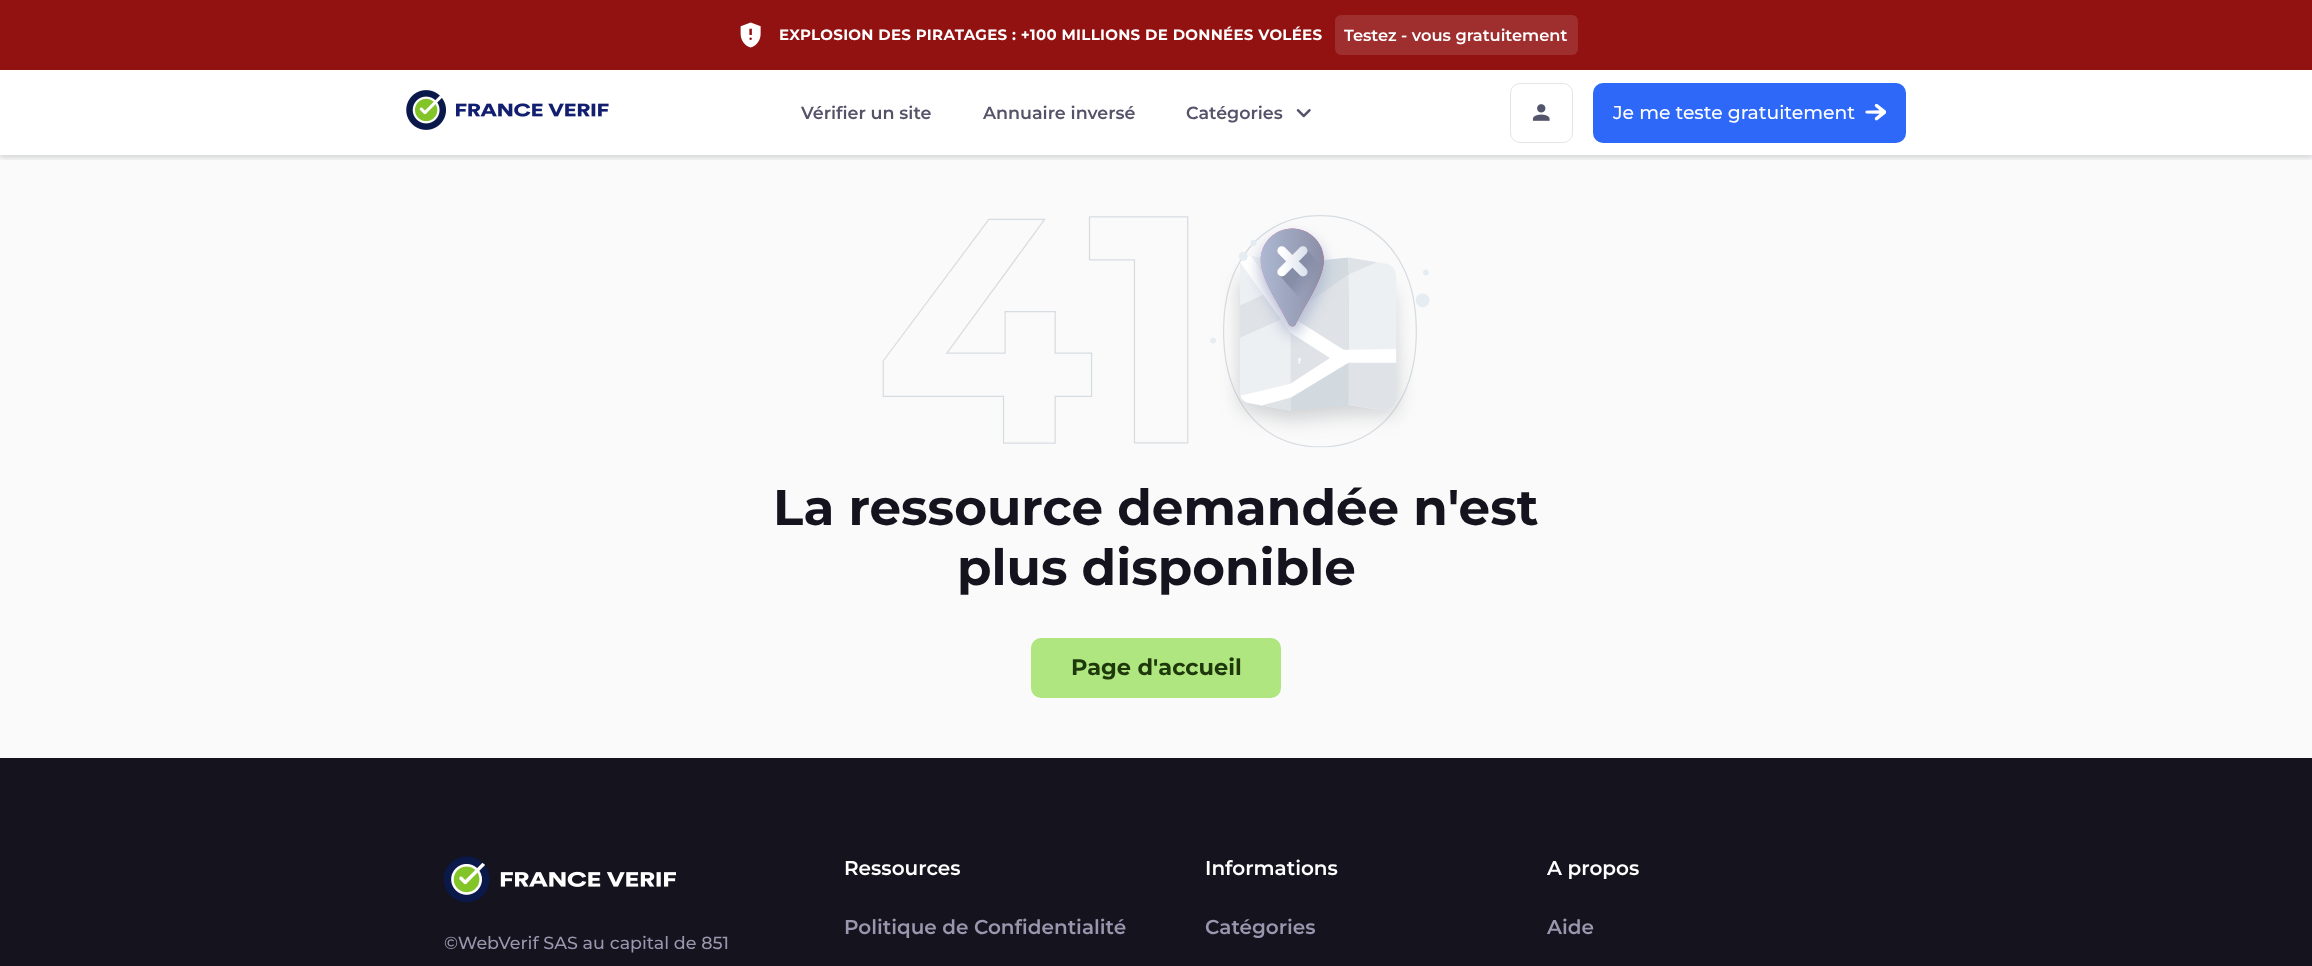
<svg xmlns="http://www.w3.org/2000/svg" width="2312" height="966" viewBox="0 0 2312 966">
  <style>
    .t1 { font: bold 15px Montserrat; letter-spacing: 0.3px; fill: #fff; }
    .t2 { font: 600 16.25px Montserrat; fill: #fff; }
    .t3 { font: 600 17.5px Montserrat; fill: #555269; }
    .t4 { font: 600 20px Montserrat; fill: #f5f6f7; }
    .t5 { font: 500 18.75px Montserrat; fill: #fff; }
    .t6 { font: bold 50px Montserrat; fill: #14131e; }
    .t7 { font: bold 22.5px Montserrat; fill: #1f380b; }
    .t8 { font: 600 20px Montserrat; fill: #fff; }
    .t9 { font: 600 20px Montserrat; fill: #9996ae; }
    .t10 { font: 500 17.5px Montserrat; fill: #9996ae; }
  </style>
  <defs>
    <clipPath id="clip1"><rect x="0" y="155" width="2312" height="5"/></clipPath>
  </defs>
  <rect width="100%" height="100%" fill="#fff"/>
  <rect x="0" y="0" width="2312" height="70" fill="#921111"/>
  <image x="740" y="22" width="21" height="26" href="images/1.png"/>
  <text x="779" y="40" class="t1">EXPLOSION DES PIRATAGES : +100 MILLIONS DE DONNÉES VOLÉES</text>
  <rect x="1335" y="15" width="243" height="40" rx="6" fill="#9f2e2e"/>
  <text x="1344" y="41" class="t2">Testez - vous gratuitement</text>
  <rect x="0" y="155" width="2312" height="603" fill="#fafafa"/>
  <g clip-path="url(#clip1)">
    <rect x="0" y="73" width="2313" height="85" fill="#11182714" filter="blur(2.5px)"/>
    <rect x="0" y="73" width="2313" height="85" fill="#11182714" filter="blur(2.5px)"/>
  </g>
  <image x="406" y="90" width="203" height="40" href="images/2.png"/>
  <text x="801" y="119" class="t3">Vérifier un site</text>
  <text x="983" y="119" class="t3">Annuaire inversé</text>
  <text x="1186" y="119" class="t3">Catégories</text>
  <image x="1296" y="109" width="15" height="9" href="images/3.png"/>
  <image x="882" y="215" width="548" height="233" href="images/6.png"/>
  <text x="1297" y="361" class="t4">,</text>
  <rect x="1510.5" y="83.5" width="62" height="59" rx="9.5" fill="none" stroke="#e5e5e5"/>
  <image x="1532" y="104" width="18" height="17" href="images/4.png"/>
  <rect x="1593" y="83" width="313" height="60" rx="10" fill="#2d68f8"/>
  <text x="1613" y="119" class="t5">Je me teste gratuitement</text>
  <image x="1865" y="104" width="21" height="17" href="images/5.png"/>
  <text x="773" y="525" class="t6">La ressource demandée n'est</text>
  <text x="957" y="585" class="t6">plus disponible</text>
  <rect x="1031" y="638" width="250" height="60" rx="10" fill="#afe67f"/>
  <text x="1071" y="675" class="t7">Page d'accueil</text>
  <rect x="0" y="758" width="2312" height="208" fill="#14131e"/>
  <text x="844" y="875" class="t8">Ressources</text>
  <text x="844" y="934" class="t9">Politique de Confidentialité</text>
  <text x="1205" y="875" class="t8">Informations</text>
  <text x="1205" y="934" class="t9">Catégories</text>
  <text x="1547" y="875" class="t8">A propos</text>
  <text x="1547" y="934" class="t9">Aide</text>
  <image x="444" y="856" width="232" height="47" href="images/7.png"/>
  <text x="444" y="949" class="t10">©WebVerif SAS au capital de 851</text>
</svg>
